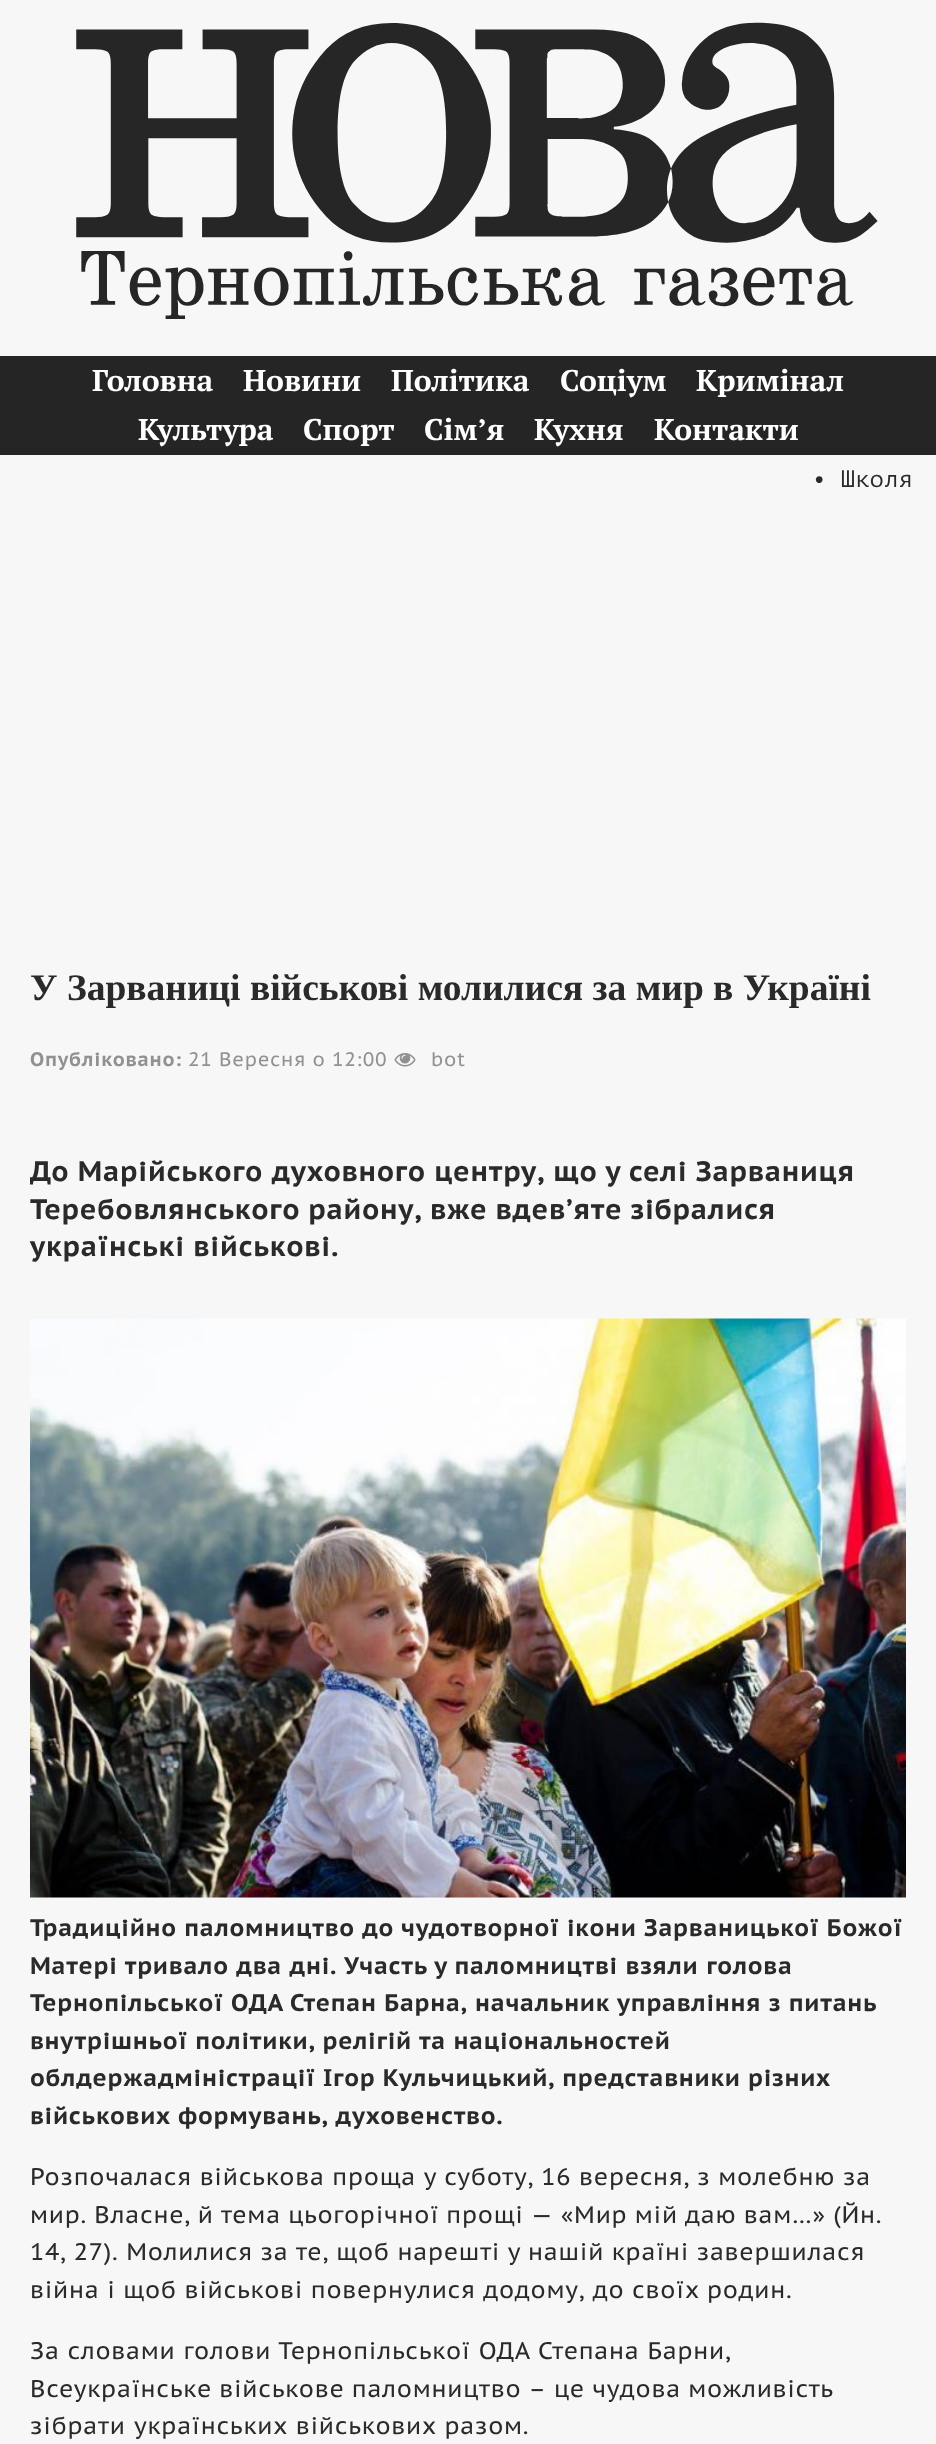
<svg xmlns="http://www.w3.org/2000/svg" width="936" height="2444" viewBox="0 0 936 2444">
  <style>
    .t1 { font: bold 30px PT Serif; fill: #fff; }
    .t2 { font: 24px PT Mono; fill: #2a2a2a; }
    .t3 { font: bold 37.5px Liberation Serif; fill: #2a2a2a; }
    .t4 { font: bold 19.5px PT Sans Caption; letter-spacing: 0.75px; fill: #919191; }
    .t5 { font: 19.5px PT Sans Caption; letter-spacing: 0.75px; fill: #919191; }
    .t6 { font: bold 28.1px PT Sans Caption; letter-spacing: 0.75px; fill: #2a2a2a; }
    .t7 { font: bold 24px PT Sans Caption; letter-spacing: 0.75px; fill: #2a2a2a; }
    .t8 { font: 24px PT Sans Caption; letter-spacing: 0.75px; fill: #2a2a2a; }
  </style>
  <rect width="100%" height="100%" fill="#f7f7f7"/>
  <image x="76" y="22" width="802" height="297" href="images/1.png"/>
  <rect x="0" y="356" width="936" height="99" fill="#252525"/>
  <text x="92" y="391" class="t1">Головна</text>
  <text x="243" y="391" class="t1">Новини</text>
  <text x="391" y="391" class="t1">Політика</text>
  <text x="560" y="391" class="t1">Соціум</text>
  <text x="696" y="391" class="t1">Кримінал</text>
  <text x="138" y="440" class="t1">Культура</text>
  <text x="303" y="440" class="t1">Спорт</text>
  <text x="424" y="440" class="t1">Сім’я</text>
  <text x="534" y="440" class="t1">Кухня</text>
  <text x="654" y="440" class="t1">Контакти</text>
  <text x="812" y="487" class="t2">• Школя</text>
  <text x="30" y="1000" class="t3">У Зарваниці військові молилися за мир в Україні</text>
  <text x="30" y="1066" class="t4">Опубліковано:</text>
  <text x="188" y="1066" class="t5">21 Вересня о 12:00</text>
  <image x="394" y="1053" width="22" height="14" href="images/2.png"/>
  <text x="431" y="1066" class="t5">bot</text>
  <text x="30" y="1181" class="t6">До Марійського духовного центру, що у селі Зарваниця</text>
  <text x="30" y="1219" word-spacing="-0.5" class="t6">Теребовлянського району, вже вдев’яте зібралися</text>
  <text x="30" y="1256" class="t6">українські військові.</text>
  <image x="30" y="1318" width="876" height="580" href="images/3.png"/>
  <text x="30" y="1936" class="t7">Традиційно паломництво до чудотворної ікони Зарваницької Божої</text>
  <text x="30" y="1974" word-spacing="0.25" class="t7">Матері тривало два дні. Участь у паломництві взяли голова</text>
  <text x="30" y="2011" word-spacing="0.25" class="t7">Тернопільської ОДА Степан Барна, начальник управління з питань</text>
  <text x="30" y="2049" class="t7">внутрішньої політики, релігій та національностей</text>
  <text x="30" y="2086" class="t7">облдержадміністрації Ігор Кульчицький, представники різних</text>
  <text x="30" y="2124" class="t7">військових формувань, духовенство.</text>
  <text x="30" y="2185" class="t8">Розпочалася військова проща у суботу, 16 вересня, з молебню за</text>
  <text x="30" y="2223" word-spacing="-0.4" class="t8">мир. Власне, й тема цьогорічної прощі — «Мир мій даю вам…» (Йн.</text>
  <text x="30" y="2260" word-spacing="-0.1" class="t8">14, 27). Молилися за те, щоб нарешті у нашій країні завершилася</text>
  <text x="30" y="2298" class="t8">війна і щоб військові повернулися додому, до своїх родин.</text>
  <text x="30" y="2359" word-spacing="0.25" class="t8">За словами голови Тернопільської ОДА Степана Барни,</text>
  <text x="30" y="2397" word-spacing="-0.5" class="t8">Всеукраїнське військове паломництво – це чудова можливість</text>
  <text x="30" y="2434" word-spacing="0.5" class="t8">зібрати українських військових разом.</text>
</svg>
